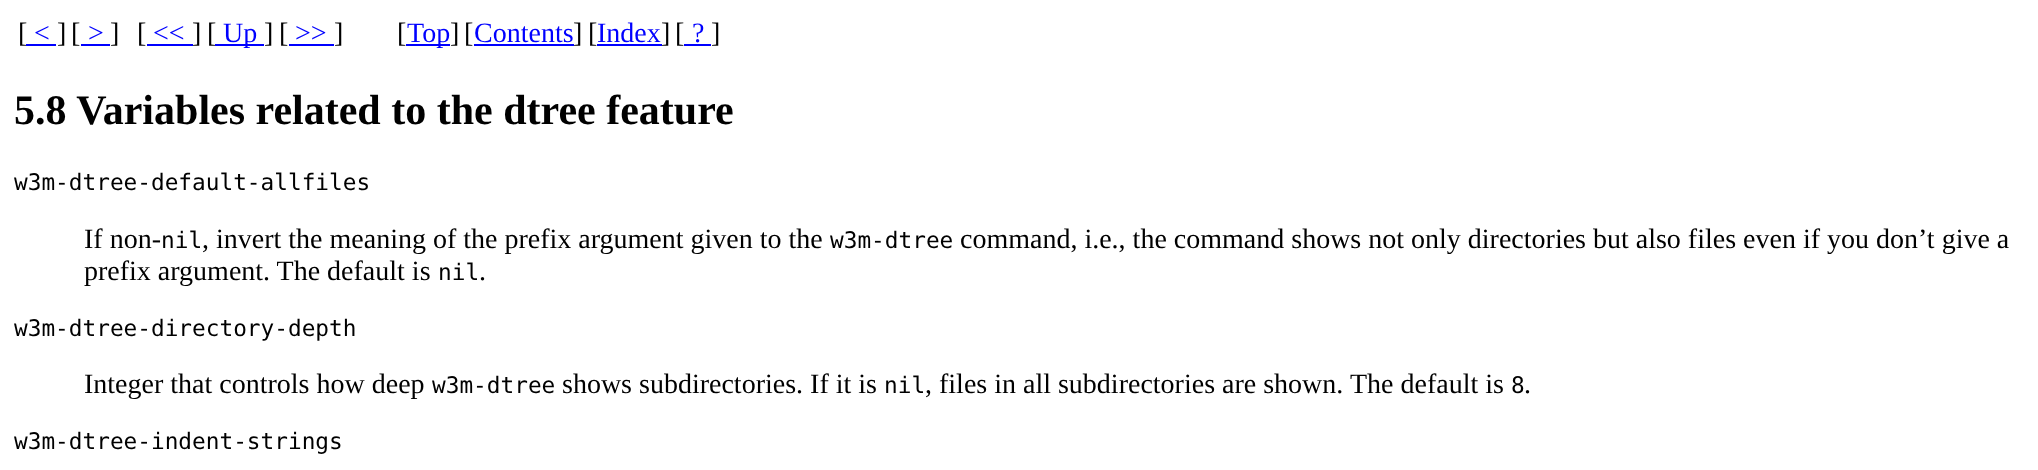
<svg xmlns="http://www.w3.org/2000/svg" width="2038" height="470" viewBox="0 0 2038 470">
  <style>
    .t1 { font: 28px Liberation Serif; fill: #000; }
    .t2 { font: 28px Liberation Serif; fill: #00f; }
    .t3 { font: bold 42px Liberation Serif; fill: #000; }
    .t4 { font: 22.75px DejaVu Sans Mono; fill: #000; }
  </style>
  <rect width="100%" height="100%" fill="#fff"/>
  <text x="18" y="42" class="t1">[</text>
  <text x="34" y="42" class="t2">&lt;</text>
  <rect x="26" y="44" width="30" height="2" fill="#00f"/>
  <text x="57" y="42" class="t1">]</text>
  <text x="71" y="42" class="t1">[</text>
  <text x="88" y="42" class="t2">&gt;</text>
  <rect x="81" y="44" width="29" height="2" fill="#00f"/>
  <text x="110" y="42" class="t1">]</text>
  <text x="137" y="42" class="t1">[</text>
  <text x="153" y="42" class="t2">&lt;&lt;</text>
  <rect x="147" y="44" width="46" height="2" fill="#00f"/>
  <text x="192" y="42" class="t1">]</text>
  <text x="207" y="42" class="t1">[</text>
  <rect x="215" y="44" width="49" height="2" fill="#00f"/>
  <text x="223" y="42" class="t2">Up</text>
  <text x="264" y="42" class="t1">]</text>
  <text x="279" y="42" class="t1">[</text>
  <text x="295" y="42" class="t2">&gt;&gt;</text>
  <rect x="289" y="44" width="45" height="2" fill="#00f"/>
  <text x="334" y="42" class="t1">]</text>
  <text x="397" y="42" class="t1">[</text>
  <rect x="406" y="44" width="44" height="2" fill="#00f"/>
  <text x="407" y="42" class="t2">Top</text>
  <text x="450" y="42" class="t1">]</text>
  <text x="464" y="42" class="t1">[</text>
  <text x="474" y="42" class="t2">Contents</text>
  <rect x="474" y="44" width="100" height="2" fill="#00f"/>
  <text x="573" y="42" class="t1">]</text>
  <text x="588" y="42" class="t1">[</text>
  <text x="597" y="42" class="t2">Index</text>
  <rect x="597" y="44" width="65" height="2" fill="#00f"/>
  <text x="661" y="42" class="t1">]</text>
  <text x="675" y="42" class="t1">[</text>
  <text x="692" y="42" class="t2">?</text>
  <rect x="684" y="44" width="27" height="2" fill="#00f"/>
  <text x="711" y="42" class="t1">]</text>
  <text x="14" y="124" class="t3">5.8 Variables related to the dtree feature</text>
  <text x="14" y="190" class="t4">w3m-dtree-default-allfiles</text>
  <text x="84" y="248" class="t1">If non-</text>
  <text x="161" y="248" class="t4">nil</text>
  <text x="202" y="248" class="t1">, invert the meaning of the prefix argument given to the</text>
  <text x="830" y="248" class="t4">w3m-dtree</text>
  <text x="960" y="248" class="t1">command, i.e., the command shows not only directories but also files even if you don’t give a</text>
  <text x="84" y="280" class="t1">prefix argument. The default is</text>
  <text x="438" y="280" class="t4">nil</text>
  <text x="479" y="280" class="t1">.</text>
  <text x="14" y="336" class="t4">w3m-dtree-directory-depth</text>
  <text x="84" y="393" class="t1">Integer that controls how deep</text>
  <text x="432" y="393" class="t4">w3m-dtree</text>
  <text x="562" y="393" class="t1">shows subdirectories. If it is</text>
  <text x="884" y="393" class="t4">nil</text>
  <text x="925" y="393" class="t1">, files in all subdirectories are shown.</text>
  <text x="1350" y="393" class="t1">The default is</text>
  <text x="1511" y="393" class="t4">8</text>
  <text x="1524" y="393" class="t1">.</text>
  <text x="14" y="449" class="t4">w3m-dtree-indent-strings</text>
</svg>
